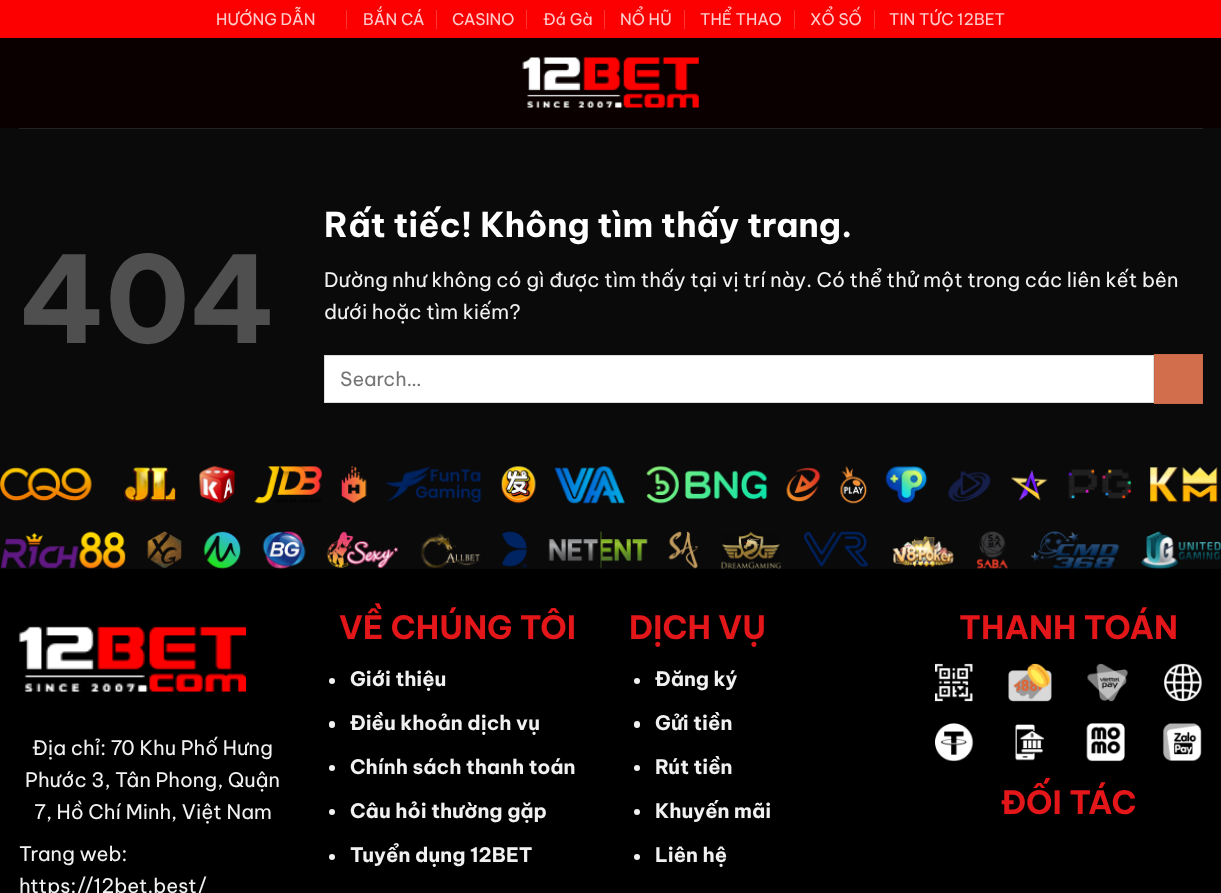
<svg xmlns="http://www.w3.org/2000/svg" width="1221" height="893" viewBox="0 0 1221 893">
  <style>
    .t1 { font: 16px Be Vietnam Pro; fill: #fecccc; }
    .t2 { font: bold 120px Be Vietnam Pro; fill: #4f4f4f; }
    .t3 { font: bold 34px Be Vietnam Pro; fill: #fff; }
    .t4 { font: 20px Be Vietnam Pro; fill: #f1f1f1; }
    .t5 { font: 19.5px Be Vietnam Pro; fill: #757575; }
    .t6 { font: bold 32px Be Vietnam Pro; fill: #e31619; }
    .t7 { font: bold 20px Be Vietnam Pro; fill: #f1f1f1; }
  </style>
  <rect width="100%" height="100%" fill="#0a0a0a"/>
  <rect x="0" y="0" width="1221" height="38" fill="#fc0001"/>
  <text x="216" y="25" class="t1">HƯỚNG DẪN</text>
  <rect x="346" y="10" width="1" height="19" fill="#fd3334"/>
  <text x="363" y="25" class="t1">BẮN CÁ</text>
  <rect x="436" y="10" width="1" height="19" fill="#fd3334"/>
  <text x="452" y="25" class="t1">CASINO</text>
  <rect x="526" y="10" width="1" height="19" fill="#fd3334"/>
  <text x="543" y="25" class="t1">Đá Gà</text>
  <rect x="604" y="10" width="1" height="19" fill="#fd3334"/>
  <text x="620" y="25" class="t1">NỔ HŨ</text>
  <rect x="684" y="10" width="1" height="19" fill="#fd3334"/>
  <text x="700" y="25" class="t1">THỂ THAO</text>
  <rect x="794" y="10" width="1" height="19" fill="#fd3334"/>
  <text x="810" y="25" class="t1">XỔ SỐ</text>
  <rect x="874" y="10" width="1" height="19" fill="#fd3334"/>
  <text x="889" y="25" class="t1">TIN TỨC 12BET</text>
  <rect x="0" y="38" width="1221" height="90" fill="#0a0000"/>
  <image x="522" y="57" width="177" height="51" href="images/1.png"/>
  <rect x="19" y="128" width="1184" height="1" fill="#232323"/>
  <text x="19" y="343" class="t2">404</text>
  <text x="324" y="237" class="t3">Rất tiếc! Không tìm thấy trang.</text>
  <text x="324" y="287" class="t4">Dường như không có gì được tìm thấy tại vị trí này. Có thể thử một trong các liên kết bên</text>
  <text x="324" y="319" class="t4">dưới hoặc tìm kiếm?</text>
  <rect x="324.5" y="355.5" width="829" height="47" fill="#fff" stroke="#ddd"/>
  <text x="340" y="386" class="t5">Search…</text>
  <rect x="1154.5" y="354.5" width="48" height="49" fill="#d26e4b" stroke="#c86947"/>
  <image x="0" y="466" width="1221" height="103" href="images/2.png"/>
  <rect x="0" y="569" width="1221" height="324" fill="#000"/>
  <image x="18" y="626" width="229" height="67" href="images/3.png"/>
  <text x="32" y="755" class="t4">Địa chỉ: 70 Khu Phố Hưng</text>
  <text x="25" y="787" class="t4">Phước 3, Tân Phong, Quận</text>
  <text x="34" y="819" class="t4">7, Hồ Chí Minh, Việt Nam</text>
  <text x="19" y="861" class="t4">Trang web:</text>
  <text x="19" y="893" class="t4">https://12bet.best/</text>
  <text x="339" y="639" class="t6">VỀ CHÚNG TÔI</text>
  <circle cx="332" cy="681" r="3" fill="#f1f1f1"/>
  <text x="350" y="686" class="t7">Giới thiệu</text>
  <rect x="329" y="721" width="6" height="7" rx="3" fill="#f1f1f1"/>
  <text x="350" y="730" class="t7">Điều khoản dịch vụ</text>
  <circle cx="332" cy="768" r="3" fill="#f1f1f1"/>
  <text x="350" y="774" class="t7">Chính sách thanh toán</text>
  <circle cx="332" cy="812" r="3" fill="#f1f1f1"/>
  <text x="350" y="818" class="t7">Câu hỏi thường gặp</text>
  <circle cx="332" cy="857" r="3" fill="#f1f1f1"/>
  <text x="350" y="862" class="t7">Tuyển dụng 12BET</text>
  <text x="629" y="639" class="t6">DỊCH VỤ</text>
  <circle cx="637" cy="681" r="3" fill="#f1f1f1"/>
  <text x="655" y="686" class="t7">Đăng ký</text>
  <rect x="634" y="721" width="6" height="7" rx="3" fill="#f1f1f1"/>
  <text x="655" y="730" class="t7">Gửi tiền</text>
  <circle cx="637" cy="768" r="3" fill="#f1f1f1"/>
  <text x="655" y="774" class="t7">Rút tiền</text>
  <circle cx="637" cy="812" r="3" fill="#f1f1f1"/>
  <text x="655" y="818" class="t7">Khuyến mãi</text>
  <circle cx="637" cy="857" r="3" fill="#f1f1f1"/>
  <text x="655" y="862" class="t7">Liên hệ</text>
  <text x="959" y="639" class="t6">THANH TOÁN</text>
  <image x="935" y="663" width="267" height="99" href="images/4.png"/>
  <text x="1001" y="814" class="t6">ĐỐI TÁC</text>
</svg>
